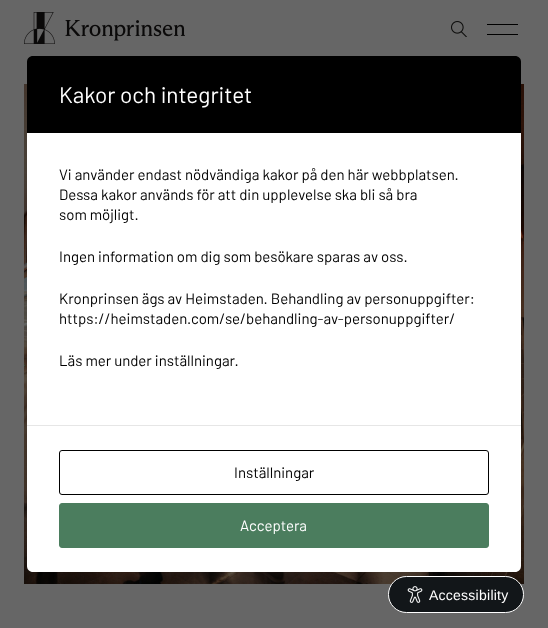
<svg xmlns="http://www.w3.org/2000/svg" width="548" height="628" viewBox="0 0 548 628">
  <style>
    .t1 { font: 22.5px Barlow; fill: #fff; }
    .t2 { font: 15px Barlow; fill: #000; }
    .t3 { font: 15px Barlow; fill: #fff; }
    .t4 { font: 14px Liberation Sans; letter-spacing: 0.25px; fill: #fff; }
  </style>
  <rect width="100%" height="100%" fill="#666"/>
  <image x="24" y="12" width="161" height="32" href="images/1.png"/>
  <image x="451" y="21" width="16" height="16" href="images/2.png"/>
  <rect x="487" y="24" width="31" height="1" fill="#000"/>
  <rect x="487" y="34" width="31" height="1" fill="#000"/>
  <image x="24" y="84" width="500" height="500" href="images/3.png"/>
  <path d="M33 56H515C518.5 56 521 58.5 521 62V133H27V62C27 58.5 29.5 56 33 56Z" fill="#000"/>
  <text x="59" y="103" class="t1">Kakor och integritet</text>
  <rect x="27" y="133" width="494" height="292" fill="#fff"/>
  <text x="59" y="180" class="t2">Vi använder endast nödvändiga kakor på den här webbplatsen.</text>
  <text x="59" y="200" class="t2">Dessa kakor används för att din upplevelse ska bli så bra</text>
  <text x="59" y="220" class="t2">som möjligt.</text>
  <text x="59" y="262" class="t2">Ingen information om dig som besökare sparas av oss.</text>
  <text x="59" y="304" class="t2">Kronprinsen ägs av Heimstaden. Behandling av personuppgifter:</text>
  <text x="59" y="324" class="t2">https://heimstaden.com/se/behandling-av-personuppgifter/</text>
  <text x="59" y="366" class="t2">Läs mer under inställningar.</text>
  <path d="M27 425H521V566C521 569.5 518.5 572 515 572H33C29.5 572 27 569.5 27 566Z" fill="#fff"/>
  <rect x="27" y="425" width="494" height="1" fill="#e6e6e6"/>
  <rect x="59.5" y="450.5" width="429" height="44" rx="2.5" fill="none" stroke="#000"/>
  <text x="234" y="478" class="t2">Inställningar</text>
  <rect x="59.5" y="503.5" width="429" height="44" rx="2.5" fill="#4b7d5e" stroke="#4b7d5e"/>
  <text x="240" y="531" class="t3">Acceptera</text>
  <rect x="388.5" y="576.5" width="135" height="36" rx="18" fill="#121619" stroke="#fff"/>
  <image x="407" y="586" width="16" height="17" href="images/4.png"/>
  <text x="429" y="600" class="t4">Accessibility</text>
</svg>
